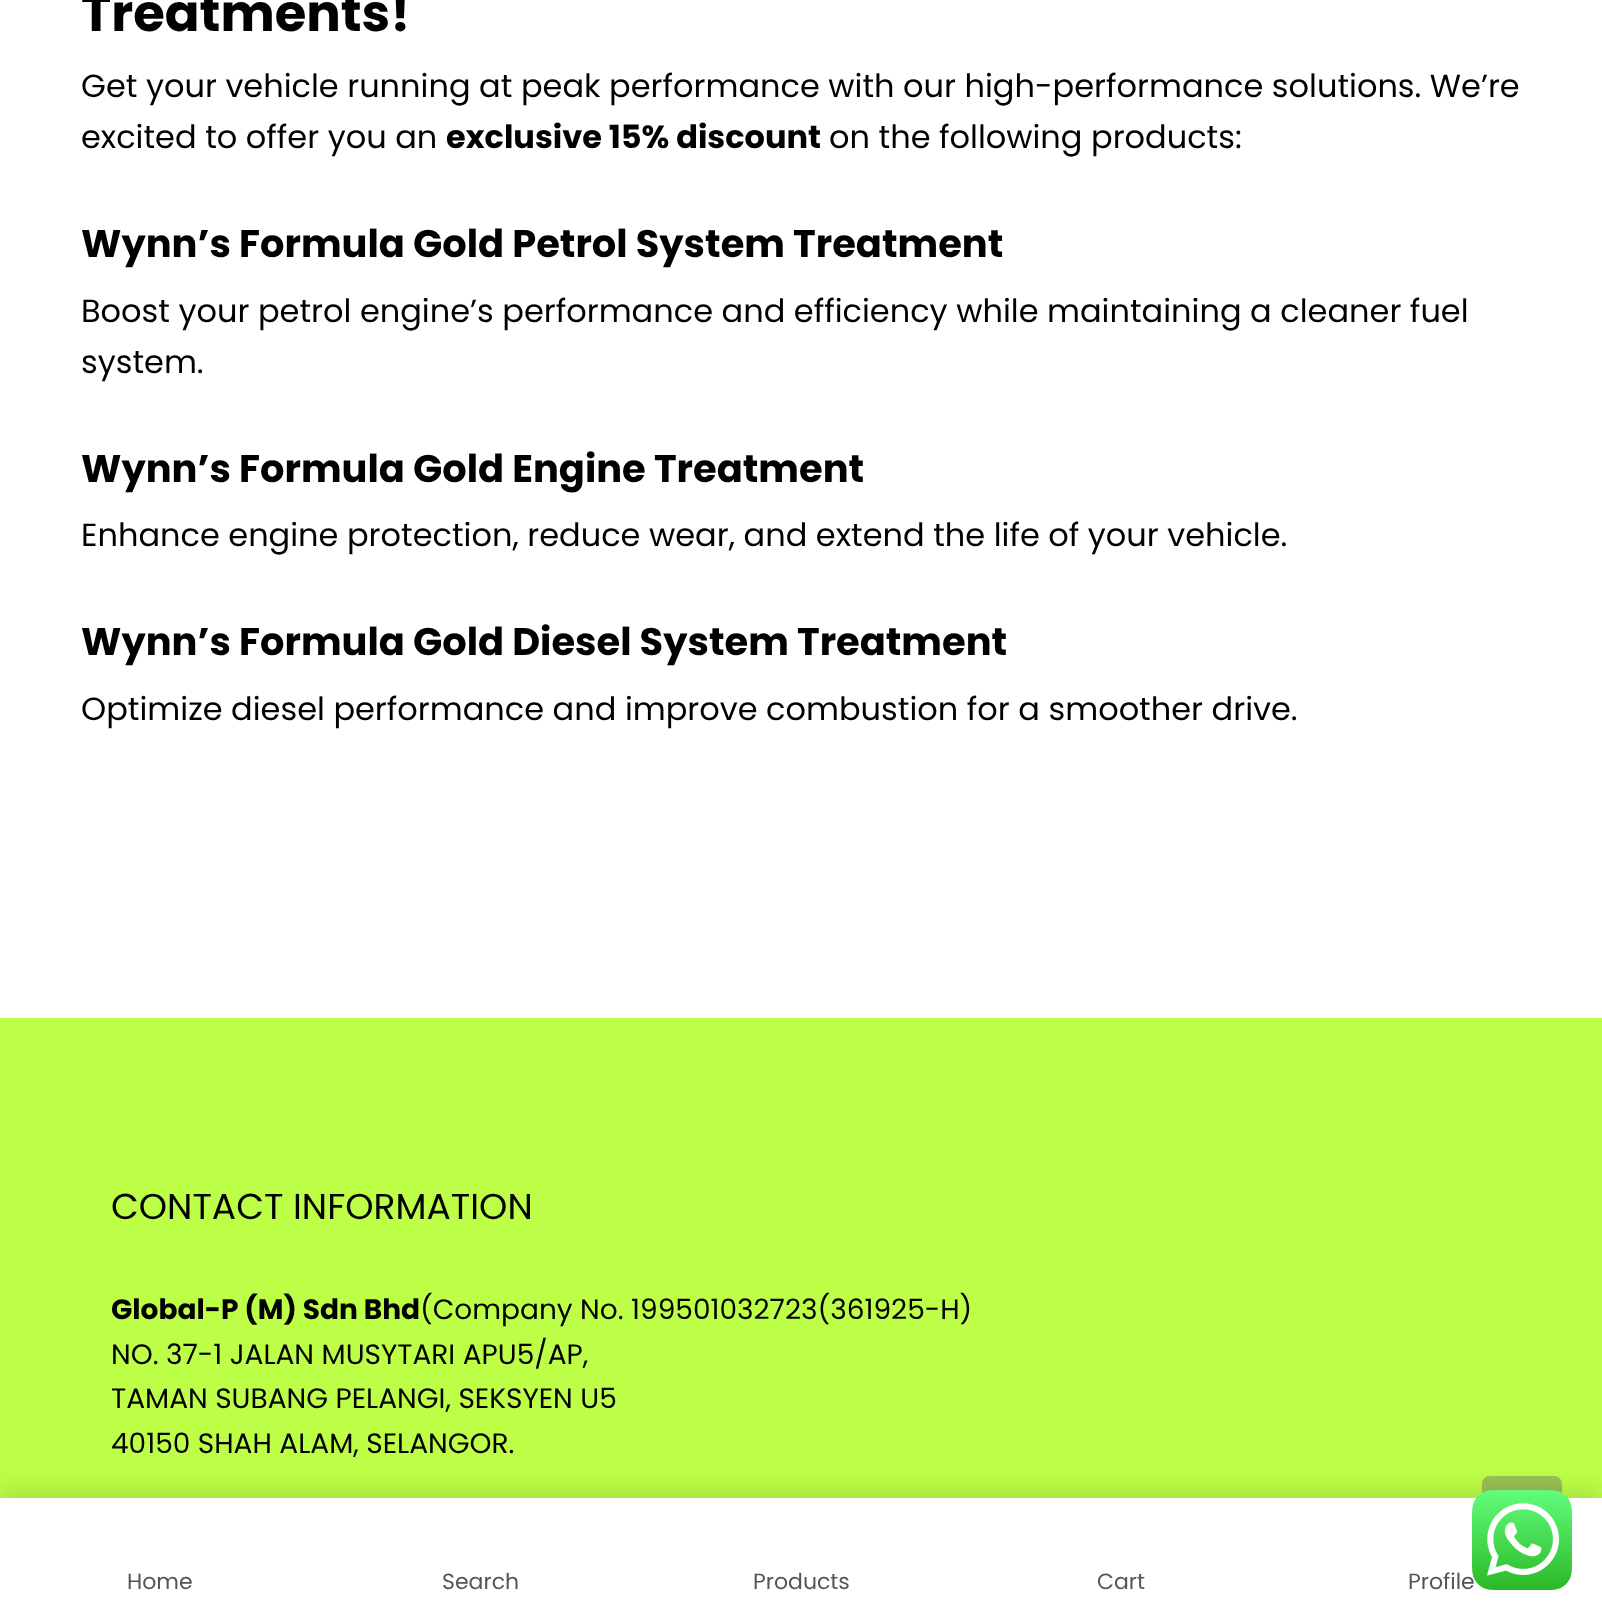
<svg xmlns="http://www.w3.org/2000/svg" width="1602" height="1619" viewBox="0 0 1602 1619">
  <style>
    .t1 { font: bold 51.25px Poppins; fill: #000; }
    .t2 { font: 32px Poppins; fill: #000; }
    .t3 { font: bold 32px Poppins; fill: #000; }
    .t4 { font: bold 38.4px Poppins; fill: #000; }
    .t5 { font: 36px Poppins; fill: #000; }
    .t6 { font: bold 28px Poppins; fill: #000; }
    .t7 { font: 28px Poppins; fill: #000; }
    .t8 { font: 22px Poppins; fill: #555; }
  </style>
  <rect width="100%" height="100%" fill="#fff"/>
  <text x="81" y="31" class="t1">Treatments!</text>
  <text x="81" y="97" class="t2">Get your vehicle running at peak performance with our high-performance solutions. We’re</text>
  <text x="81" y="148" class="t2">excited to offer you an</text>
  <text x="446" y="148" class="t3">exclusive 15% discount</text>
  <text x="829" y="148" class="t2">on the following products:</text>
  <text x="81" y="257" class="t4">Wynn’s Formula Gold Petrol System Treatment</text>
  <text x="81" y="322" class="t2">Boost your petrol engine’s performance and efficiency while maintaining a cleaner fuel</text>
  <text x="81" y="373" class="t2">system.</text>
  <text x="81" y="482" class="t4">Wynn’s Formula Gold Engine Treatment</text>
  <text x="81" y="546" class="t2">Enhance engine protection, reduce wear, and extend the life of your vehicle.</text>
  <text x="81" y="655" class="t4">Wynn’s Formula Gold Diesel System Treatment</text>
  <text x="81" y="720" class="t2">Optimize diesel performance and improve combustion for a smoother drive.</text>
  <rect x="0" y="1018" width="1602" height="480" fill="#bdfe47"/>
  <text x="111" y="1219" class="t5">CONTACT INFORMATION</text>
  <text x="111" y="1319" class="t6">Global-P (M) Sdn Bhd</text>
  <text x="420" y="1319" class="t7">(Company No. 199501032723(361925-H)</text>
  <text x="111" y="1364" class="t7">NO. 37-1 JALAN MUSYTARI APU5/AP,</text>
  <text x="111" y="1408" class="t7">TAMAN SUBANG PELANGI, SEKSYEN U5</text>
  <text x="111" y="1453" class="t7">40150 SHAH ALAM, SELANGOR.</text>
  <rect x="1482" y="1476" width="80" height="80" rx="8" fill="#99c053"/>
  <rect x="0" y="1488" width="1602" height="122" fill="#0000001a" filter="blur(10px)"/>
  <rect x="0" y="1498" width="1602" height="121" fill="#fff"/>
  <text x="127" y="1589" class="t8">Home</text>
  <text x="442" y="1589" class="t8">Search</text>
  <text x="753" y="1589" class="t8">Products</text>
  <text x="1097" y="1589" class="t8">Cart</text>
  <text x="1408" y="1589" class="t8">Profile</text>
  <image x="1472" y="1490" width="100" height="100" href="images/1.png"/>
</svg>
